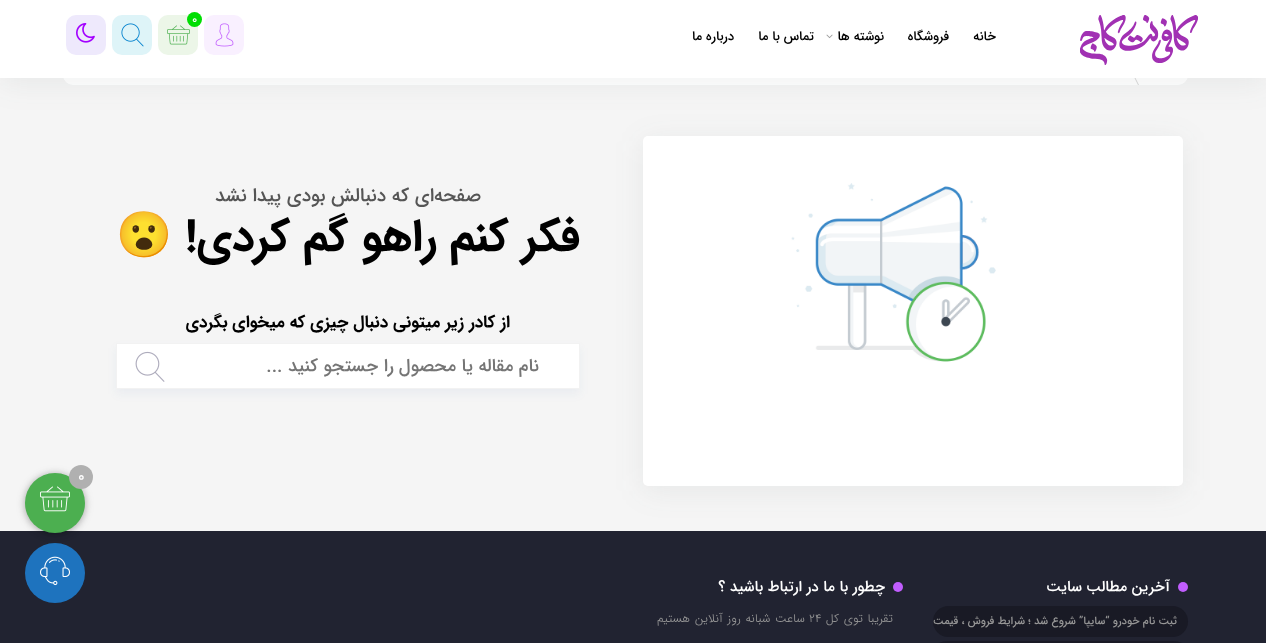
<svg xmlns="http://www.w3.org/2000/svg" width="1266" height="643" viewBox="0 0 1266 643">
  <style>
    .t1 { font: 500 12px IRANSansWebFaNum; fill: #fff; }
    .t2 { font: 500 13px IRANSansWebFaNum; direction: rtl; fill: #000; }
    .t3 { font: 500 19px IRANSansWebFaNum; direction: rtl; fill: #555; }
    .t4 { font: bold 45px IRANSansWebFaNum; direction: rtl; fill: #000; }
    .t5 { font: bold 45px Noto Color Emoji; fill: #000; }
    .t6 { font: bold 17px IRANSansWebFaNum; direction: rtl; fill: #000; }
    .t7 { font: 500 18px IRANSansWebFaNum; direction: rtl; fill: #757575; }
    .t8 { font: 500 15px IRANSansWebFaNum; fill: #fff; }
    .t9 { font: 500 15px IRANSansWebFaNum; direction: rtl; fill: #fff; }
    .t10 { font: 500 11px IRANSansWebFaNum; direction: rtl; fill: #969696; }
    .t11 { font: 300 12px IRANSansWebFaNum; direction: rtl; fill: #969696; }
    .t12 { font: 300 12px IRANSansWebFaNum; fill: #969696; }
  </style>
  <defs>
    <clipPath id="clip1"><rect x="933" y="606" width="255" height="31" rx="15.5"/></clipPath>
  </defs>
  <rect width="100%" height="100%" fill="#f5f5f5"/>
  <rect x="63" y="45" width="1125" height="40" rx="10" fill="#fff"/>
  <image x="1134" y="78" width="5" height="7" href="images/7.png"/>
  <rect x="0" y="5" width="1266" height="78" fill="#46484d14" filter="blur(15px)"/>
  <rect x="0" y="0" width="1266" height="78" fill="#fff"/>
  <image x="1080" y="15" width="118" height="50" href="images/1.png"/>
  <rect x="204" y="15" width="40" height="40" rx="10" fill="#f9f0ff"/>
  <image x="215" y="23" width="19" height="24" href="images/2.png"/>
  <rect x="158" y="15" width="40" height="40" rx="10" fill="#ecf6e8"/>
  <image x="167" y="25" width="23" height="20" href="images/3.png"/>
  <circle cx="194.5" cy="19.5" r="7.5" fill="#00de03"/>
  <text x="192" y="23" class="t1">0</text>
  <rect x="112" y="15" width="40" height="40" rx="10" fill="#def4f8"/>
  <image x="121" y="23" width="23" height="24" href="images/4.png"/>
  <rect x="66" y="15" width="40" height="40" rx="10" fill="#eee9fc"/>
  <image x="76" y="23" width="19" height="20" href="images/5.png"/>
  <text x="996" y="40" class="t2">خانه</text>
  <text x="949" y="40" class="t2">فروشگاه</text>
  <text x="884" y="40" class="t2">نوشته ها</text>
  <image x="826" y="34" width="7" height="5" href="images/6.png"/>
  <text x="814" y="40" class="t2">تماس با ما</text>
  <text x="734" y="40" class="t2">درباره ما</text>
  <rect x="643" y="141" width="540" height="350" rx="5" fill="#46484d14" filter="blur(15px)"/>
  <rect x="643" y="136" width="540" height="350" rx="5" fill="#fff"/>
  <image x="791" y="183" width="205" height="179" href="images/8.png"/>
  <text x="481" y="201" class="t3">صفحه‌ای که دنبالش بودی پیدا نشد</text>
  <text x="580" y="250" class="t4">فکر کنم راهو گم کردی!</text>
  <text x="116" y="250" class="t5">😮</text>
  <text x="510" y="327" class="t6">از کادر زیر میتونی دنبال چیزی که میخوای بگردی</text>
  <rect x="116" y="348" width="464" height="46" fill="#14539b0d" filter="blur(5px)"/>
  <rect x="116.5" y="343.5" width="463" height="45" fill="#fff" stroke="#f2f2f2"/>
  <text x="539" y="371" class="t7">نام مقاله یا محصول را جستجو کنید ...</text>
  <image x="135" y="351" width="30" height="31" href="images/9.png"/>
  <rect x="0" y="531" width="1266" height="112" fill="#212331"/>
  <rect x="25" y="474" width="60" height="60" rx="30" fill="#00000026" filter="blur(5px)"/>
  <rect x="25" y="474" width="60" height="60" rx="30" fill="#00000033" filter="blur(3px)"/>
  <circle cx="55" cy="503" r="30" fill="#4caf50"/>
  <image x="40" y="486" width="30" height="26" href="images/10.png"/>
  <circle cx="81" cy="477" r="12" fill="#b0b0b0"/>
  <text x="78" y="481" class="t8">0</text>
  <circle cx="55" cy="573" r="30" fill="#1e73be"/>
  <image x="40" y="556" width="30" height="30" href="images/11.png"/>
  <circle cx="1183" cy="587" r="5" fill="#c15dfe"/>
  <text x="1170" y="591" class="t9">آخرین مطالب سایت</text>
  <rect x="933" y="606" width="255" height="31" rx="15.5" fill="#191a25"/>
  <g clip-path="url(#clip1)">
    <text x="1177" y="624" class="t10">ثبت نام خودرو “سایپا” شروع شد ؛ شرایط فروش ، قیمت ، مهلت …</text>
  </g>
  <rect x="933" y="641" width="255" height="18" rx="15.5" fill="#191a25"/>
  <circle cx="898" cy="587" r="5" fill="#c15dfe"/>
  <text x="885" y="591" class="t9">چطور با ما در ارتباط باشید ؟</text>
  <text x="893" y="622" word-spacing="1" class="t11">تقریبا توی کل</text>
  <text x="809" y="622" class="t12">24</text>
  <text x="805" y="622" word-spacing="1" class="t11">ساعت شبانه روز آنلاین هستیم</text>
</svg>
